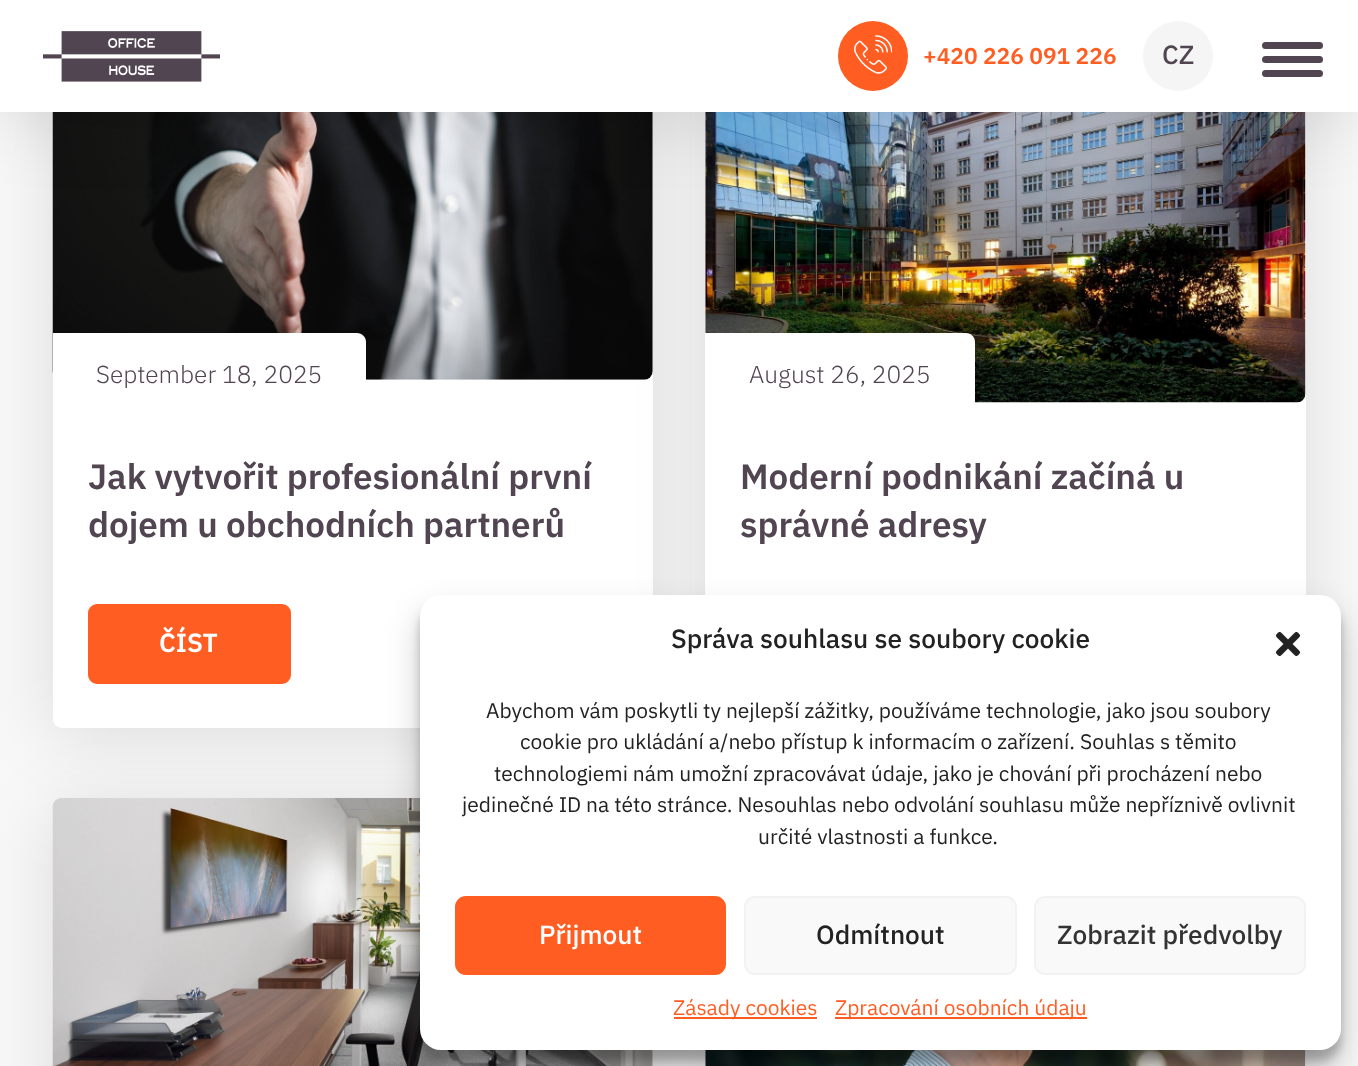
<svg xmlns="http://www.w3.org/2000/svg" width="1358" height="1066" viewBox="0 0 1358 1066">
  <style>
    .t1 { font: 600 22.75px IBM Plex Sans; fill: #ff5d22; }
    .t2 { font: 500 26.25px IBM Plex Sans; fill: #524552; }
    .t3 { font: 300 24.5px IBM Plex Sans; fill: #524552; }
    .t4 { font: 600 35px IBM Plex Sans; fill: #524552; }
    .t5 { font: 600 26.25px IBM Plex Sans; fill: #fff; }
    .t6 { font: 500 26.25px IBM Plex Sans; fill: #222; }
    .t7 { font: 21px IBM Plex Sans; fill: #222; }
    .t8 { font: 500 26.25px IBM Plex Sans; fill: #fff; }
    .t9 { font: 500 26.25px IBM Plex Sans; fill: #333; }
    .t10 { font: 21px IBM Plex Sans; fill: #ff5d22; }
  </style>
  <rect width="100%" height="100%" fill="#f8f8f8"/>
  <rect x="53" y="-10" width="600" height="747" rx="9" fill="#0000001c" filter="blur(35px)"/>
  <rect x="53" y="-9" width="600" height="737" rx="9" fill="#fff"/>
  <rect x="705" y="-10" width="601" height="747" rx="9" fill="#0000001c" filter="blur(35px)"/>
  <image x="52" y="112" width="601" height="268" href="images/3.png"/>
  <rect x="705" y="112" width="601" height="483" fill="#fff"/>
  <image x="705" y="112" width="601" height="291" href="images/4.png"/>
  <rect x="0" y="9" width="1358" height="112" fill="#0000001c" filter="blur(35px)"/>
  <rect x="0" y="0" width="1358" height="112" fill="#fff"/>
  <image x="43" y="31" width="177" height="51" href="images/1.png"/>
  <circle cx="873" cy="56" r="35" fill="#ff5d22"/>
  <image x="854" y="35" width="38" height="39" href="images/2.png"/>
  <text x="923" y="64" class="t1">+420 226 091 226</text>
  <circle cx="1178" cy="56" r="35" fill="#f5f5f5"/>
  <text x="1162" y="64" class="t2">CZ</text>
  <rect x="1262" y="42" width="61" height="7" rx="3.5" fill="#524552"/>
  <rect x="1262" y="56" width="61" height="7" rx="3.5" fill="#524552"/>
  <rect x="1262" y="70" width="61" height="7" rx="3.5" fill="#524552"/>
  <path d="M53 333H357C362 333 366 337 366 342V418H53Z" fill="#fff"/>
  <text x="96" y="383" class="t3">September 18, 2025</text>
  <text x="88" y="489" class="t4">Jak vytvořit profesionální první</text>
  <text x="88" y="537" class="t4">dojem u obchodních partnerů</text>
  <rect x="89" y="605" width="201" height="78" rx="8" fill="#ff5d22" stroke="#ff5d22" stroke-width="2"/>
  <text x="159" y="652" class="t5">ČÍST</text>
  <path d="M705 333H966C971 333 975 337 975 342V418H705Z" fill="#fff"/>
  <text x="749" y="383" class="t3">August 26, 2025</text>
  <text x="740" y="489" class="t4">Moderní podnikání začíná u</text>
  <text x="740" y="537" class="t4">správné adresy</text>
  <rect x="53" y="807" width="600" height="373" rx="9" fill="#0000001c" filter="blur(35px)"/>
  <rect x="53" y="798" width="600" height="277" rx="9" fill="#fff"/>
  <rect x="705" y="807" width="601" height="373" rx="9" fill="#0000001c" filter="blur(35px)"/>
  <image x="52" y="798" width="601" height="268" href="images/5.png"/>
  <rect x="705" y="1050" width="601" height="16" fill="#fff"/>
  <image x="705" y="1050" width="601" height="16" href="images/6.png"/>
  <rect x="420" y="606" width="921" height="455" rx="21" fill="#0000003b" filter="blur(5px)"/>
  <rect x="420" y="613" width="921" height="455" rx="21" fill="#00000030" filter="blur(17.5px)"/>
  <rect x="420" y="595" width="921" height="455" rx="21" fill="#fff"/>
  <text x="671" y="648" class="t6">Správa souhlasu se soubory cookie</text>
  <image x="1276" y="632" width="24" height="24" href="images/7.png"/>
  <text x="486" y="718" class="t7">Abychom vám poskytli ty nejlepší zážitky, používáme technologie, jako jsou soubory</text>
  <text x="520" y="749" class="t7">cookie pro ukládání a/nebo přístup k informacím o zařízení. Souhlas s těmito</text>
  <text x="494" y="781" class="t7">technologiemi nám umožní zpracovávat údaje, jako je chování při procházení nebo</text>
  <text x="462" y="812" class="t7">jedinečné ID na této stránce. Nesouhlas nebo odvolání souhlasu může nepříznivě ovlivnit</text>
  <text x="758" y="844" class="t7">určité vlastnosti a funkce.</text>
  <rect x="456" y="897" width="269" height="77" rx="10" fill="#ff5d22" stroke="#ff5d22" stroke-width="2"/>
  <text x="539" y="944" class="t8">Přijmout</text>
  <rect x="745" y="897" width="271" height="77" rx="10" fill="#f9f9f9" stroke="#f2f2f2" stroke-width="2"/>
  <text x="816" y="944" class="t6">Odmítnout</text>
  <rect x="1035" y="897" width="270" height="77" rx="10" fill="#f9f9f9" stroke="#f2f2f2" stroke-width="2"/>
  <text x="1057" y="944" class="t9">Zobrazit předvolby</text>
  <rect x="674" y="1017" width="143" height="2" fill="#ff5d22"/>
  <text x="673" y="1015" class="t10">Zásady cookies</text>
  <rect x="835" y="1017" width="252" height="2" fill="#ff5d22"/>
  <text x="835" y="1015" class="t10">Zpracování osobních údaju</text>
</svg>
